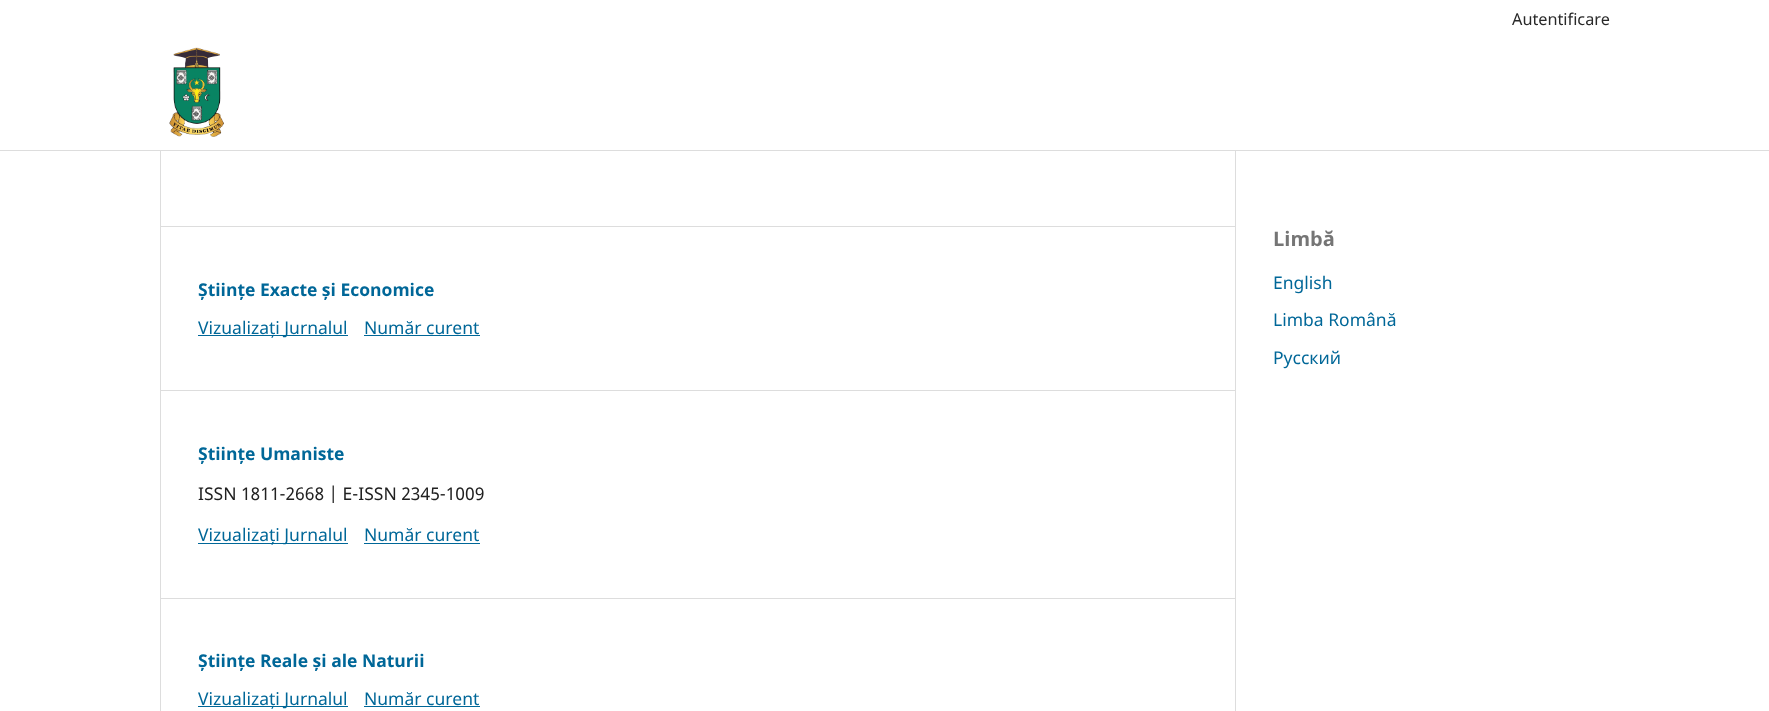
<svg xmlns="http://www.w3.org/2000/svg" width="1769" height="711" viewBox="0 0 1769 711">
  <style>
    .t1 { font: 16.25px Noto Sans; fill: #292929; }
    .t2 { font: bold 17.5px Noto Sans; fill: #006798; }
    .t3 { font: 17.5px Noto Sans; fill: #006798; }
    .t4 { font: 17.5px Noto Sans; fill: #212121; }
    .t5 { font: bold 20px Noto Sans; fill: #757575; }
  </style>
  <rect width="100%" height="100%" fill="#fff"/>
  <rect x="0" y="150" width="1769" height="1" fill="#ddd"/>
  <text x="1512" y="25" class="t1">Autentificare</text>
  <image x="169" y="47" width="55" height="90" href="images/1.png"/>
  <rect x="160" y="226" width="1075" height="1" fill="#ddd"/>
  <rect x="160" y="390" width="1075" height="1" fill="#ddd"/>
  <rect x="160" y="598" width="1075" height="1" fill="#ddd"/>
  <rect x="160" y="151" width="1" height="560" fill="#ddd"/>
  <text x="198" y="296" class="t2">Științe Exacte și Economice</text>
  <rect x="198" y="335" width="150" height="1" fill="#006798"/>
  <text x="198" y="334" class="t3">Vizualizați Jurnalul</text>
  <text x="364" y="334" class="t3">Număr curent</text>
  <rect x="364" y="335" width="116" height="1" fill="#006798"/>
  <text x="198" y="460" class="t2">Științe Umaniste</text>
  <text x="198" y="500" class="t4">ISSN 1811-2668 | E-ISSN 2345-1009</text>
  <rect x="198" y="543" width="150" height="1" fill="#006798"/>
  <text x="198" y="541" class="t3">Vizualizați Jurnalul</text>
  <text x="364" y="541" class="t3">Număr curent</text>
  <rect x="364" y="543" width="116" height="1" fill="#006798"/>
  <text x="198" y="667" class="t2">Științe Reale și ale Naturii</text>
  <rect x="198" y="706" width="150" height="1" fill="#006798"/>
  <text x="198" y="705" class="t3">Vizualizați Jurnalul</text>
  <text x="364" y="705" class="t3">Număr curent</text>
  <rect x="364" y="706" width="116" height="1" fill="#006798"/>
  <rect x="1235" y="151" width="1" height="560" fill="#ddd"/>
  <text x="1273" y="246" class="t5">Limbă</text>
  <text x="1273" y="289" class="t3">English</text>
  <text x="1273" y="326" class="t3">Limba Română</text>
  <text x="1273" y="364" class="t3">Русский</text>
</svg>
